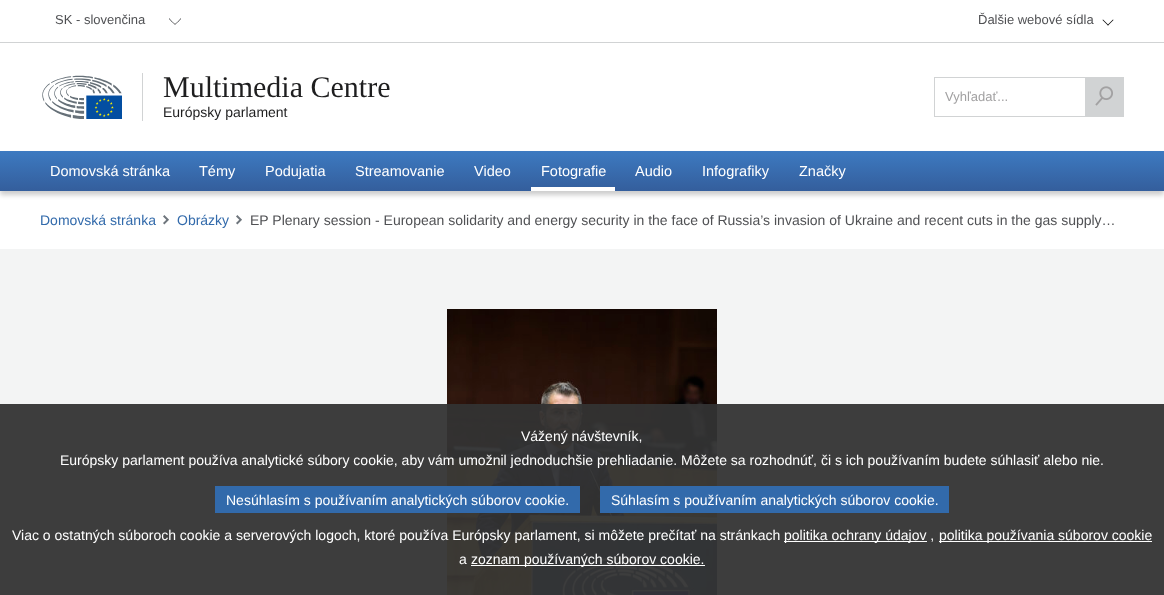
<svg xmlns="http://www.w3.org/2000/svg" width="1164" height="595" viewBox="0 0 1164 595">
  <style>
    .t1 { font: 13px Liberation Sans; fill: #505154; }
    .t2 { font: 30px Liberation Serif; fill: #1e1e1f; }
    .t3 { font: 14px Liberation Sans; fill: #1e1e1f; }
    .t4 { font: 13px Liberation Sans; fill: #a2a1a2; }
    .t5 { font: 14.5px Liberation Sans; fill: #fff; }
    .t6 { font: 14px Liberation Sans; fill: #326aab; }
    .t7 { font: 14px Liberation Sans; fill: #505154; }
    .t8 { font: 14px Liberation Sans; fill: #fff; }
  </style>
  <defs>
    <linearGradient id="g1" gradientUnits="userSpaceOnUse" x1="582" y1="151" x2="582" y2="191"><stop offset="0" stop-color="#3d7ac1"/><stop offset="1" stop-color="#345e9c"/></linearGradient>
  </defs>
  <rect width="100%" height="100%" fill="#fff"/>
  <rect x="0" y="42" width="1164" height="1" fill="#d1d3d4"/>
  <text x="55" y="24" class="t1">SK - slovenčina</text>
  <path d="M180.5 18.5C180.5 19.5 179 21 178 21.5C175 25 175 25 172 21.5C171 21 169.5 19.5 169.5 18.5" fill="none" stroke="#505154"/>
  <text x="978" y="24" class="t1">Ďalšie webové sídla</text>
  <path d="M1113 19.5L1113.5 20L1108 25.5L1107.5 25Z" fill="#000"/>
  <path d="M1103 19.5L1108.5 25L1108 25.5L1102.5 20Z" fill="#000"/>
  <image x="42" y="75" width="80" height="44" href="images/1.png"/>
  <rect x="142" y="73" width="1" height="48" fill="#d1d3d4"/>
  <text x="163" y="97" class="t2">Multimedia Centre</text>
  <text x="163" y="117" class="t3">Európsky parlament</text>
  <rect x="934.5" y="77.5" width="189" height="39" fill="none" stroke="#d1d3d4"/>
  <text x="945" y="101" class="t4">Vyhľadať...</text>
  <rect x="1085" y="78" width="38" height="38" fill="#d1d3d4"/>
  <image x="1095" y="86" width="18" height="20" href="images/2.png"/>
  <rect x="0" y="155" width="1164" height="40" fill="#00000033" filter="blur(2.5px)"/>
  <rect x="0" y="151" width="1164" height="40" fill="url(#g1)"/>
  <text x="50" y="176" class="t5">Domovská stránka</text>
  <text x="199" y="176" class="t5">Témy</text>
  <text x="265" y="176" class="t5">Podujatia</text>
  <text x="355" y="176" class="t5">Streamovanie</text>
  <text x="474" y="176" class="t5">Video</text>
  <text x="541" y="176" class="t5">Fotografie</text>
  <rect x="531" y="187" width="84" height="4" fill="#fff"/>
  <text x="635" y="176" class="t5">Audio</text>
  <text x="702" y="176" class="t5">Infografiky</text>
  <text x="799" y="176" class="t5">Značky</text>
  <text x="40" y="225" class="t6">Domovská stránka</text>
  <image x="163" y="215" width="6" height="10" href="images/3.png"/>
  <text x="177" y="225" class="t6">Obrázky</text>
  <image x="236" y="215" width="6" height="10" href="images/3.png"/>
  <text x="250" y="225" class="t7">EP Plenary session - European solidarity and energy security in the face of Russia’s invasion of Ukraine and recent cuts in the gas supply…</text>
  <rect x="0" y="249" width="1164" height="346" fill="#f3f4f4"/>
  <image x="447" y="309" width="270" height="286" href="images/4.png"/>
  <rect x="0" y="404" width="1164" height="191" fill="#333333f2"/>
  <text x="521" y="441" class="t8">Vážený návštevník,</text>
  <text x="60" y="465" class="t8">Európsky parlament používa analytické súbory cookie, aby vám umožnil jednoduchšie prehliadanie. Môžete sa rozhodnúť, či s ich používaním budete súhlasiť alebo nie.</text>
  <rect x="215" y="486" width="365" height="27" fill="#326aab"/>
  <text x="226" y="505" class="t8">Nesúhlasím s používaním analytických súborov cookie.</text>
  <rect x="600" y="486" width="349" height="27" fill="#326aab"/>
  <text x="611" y="505" class="t8">Súhlasím s používaním analytických súborov cookie.</text>
  <text x="12" y="540" class="t8">Viac o ostatných súboroch cookie a serverových logoch, ktoré používa Európsky parlament, si môžete prečítať na stránkach</text>
  <rect x="784" y="541" width="143" height="1" fill="#fff"/>
  <text x="784" y="540" class="t8">politika ochrany údajov ,</text>
  <rect x="939" y="541" width="213" height="1" fill="#fff"/>
  <text x="939" y="540" class="t8">politika používania súborov cookie</text>
  <text x="459" y="564" class="t8">a</text>
  <rect x="471" y="565" width="234" height="1" fill="#fff"/>
  <text x="471" y="564" class="t8">zoznam používaných súborov cookie.</text>
</svg>
